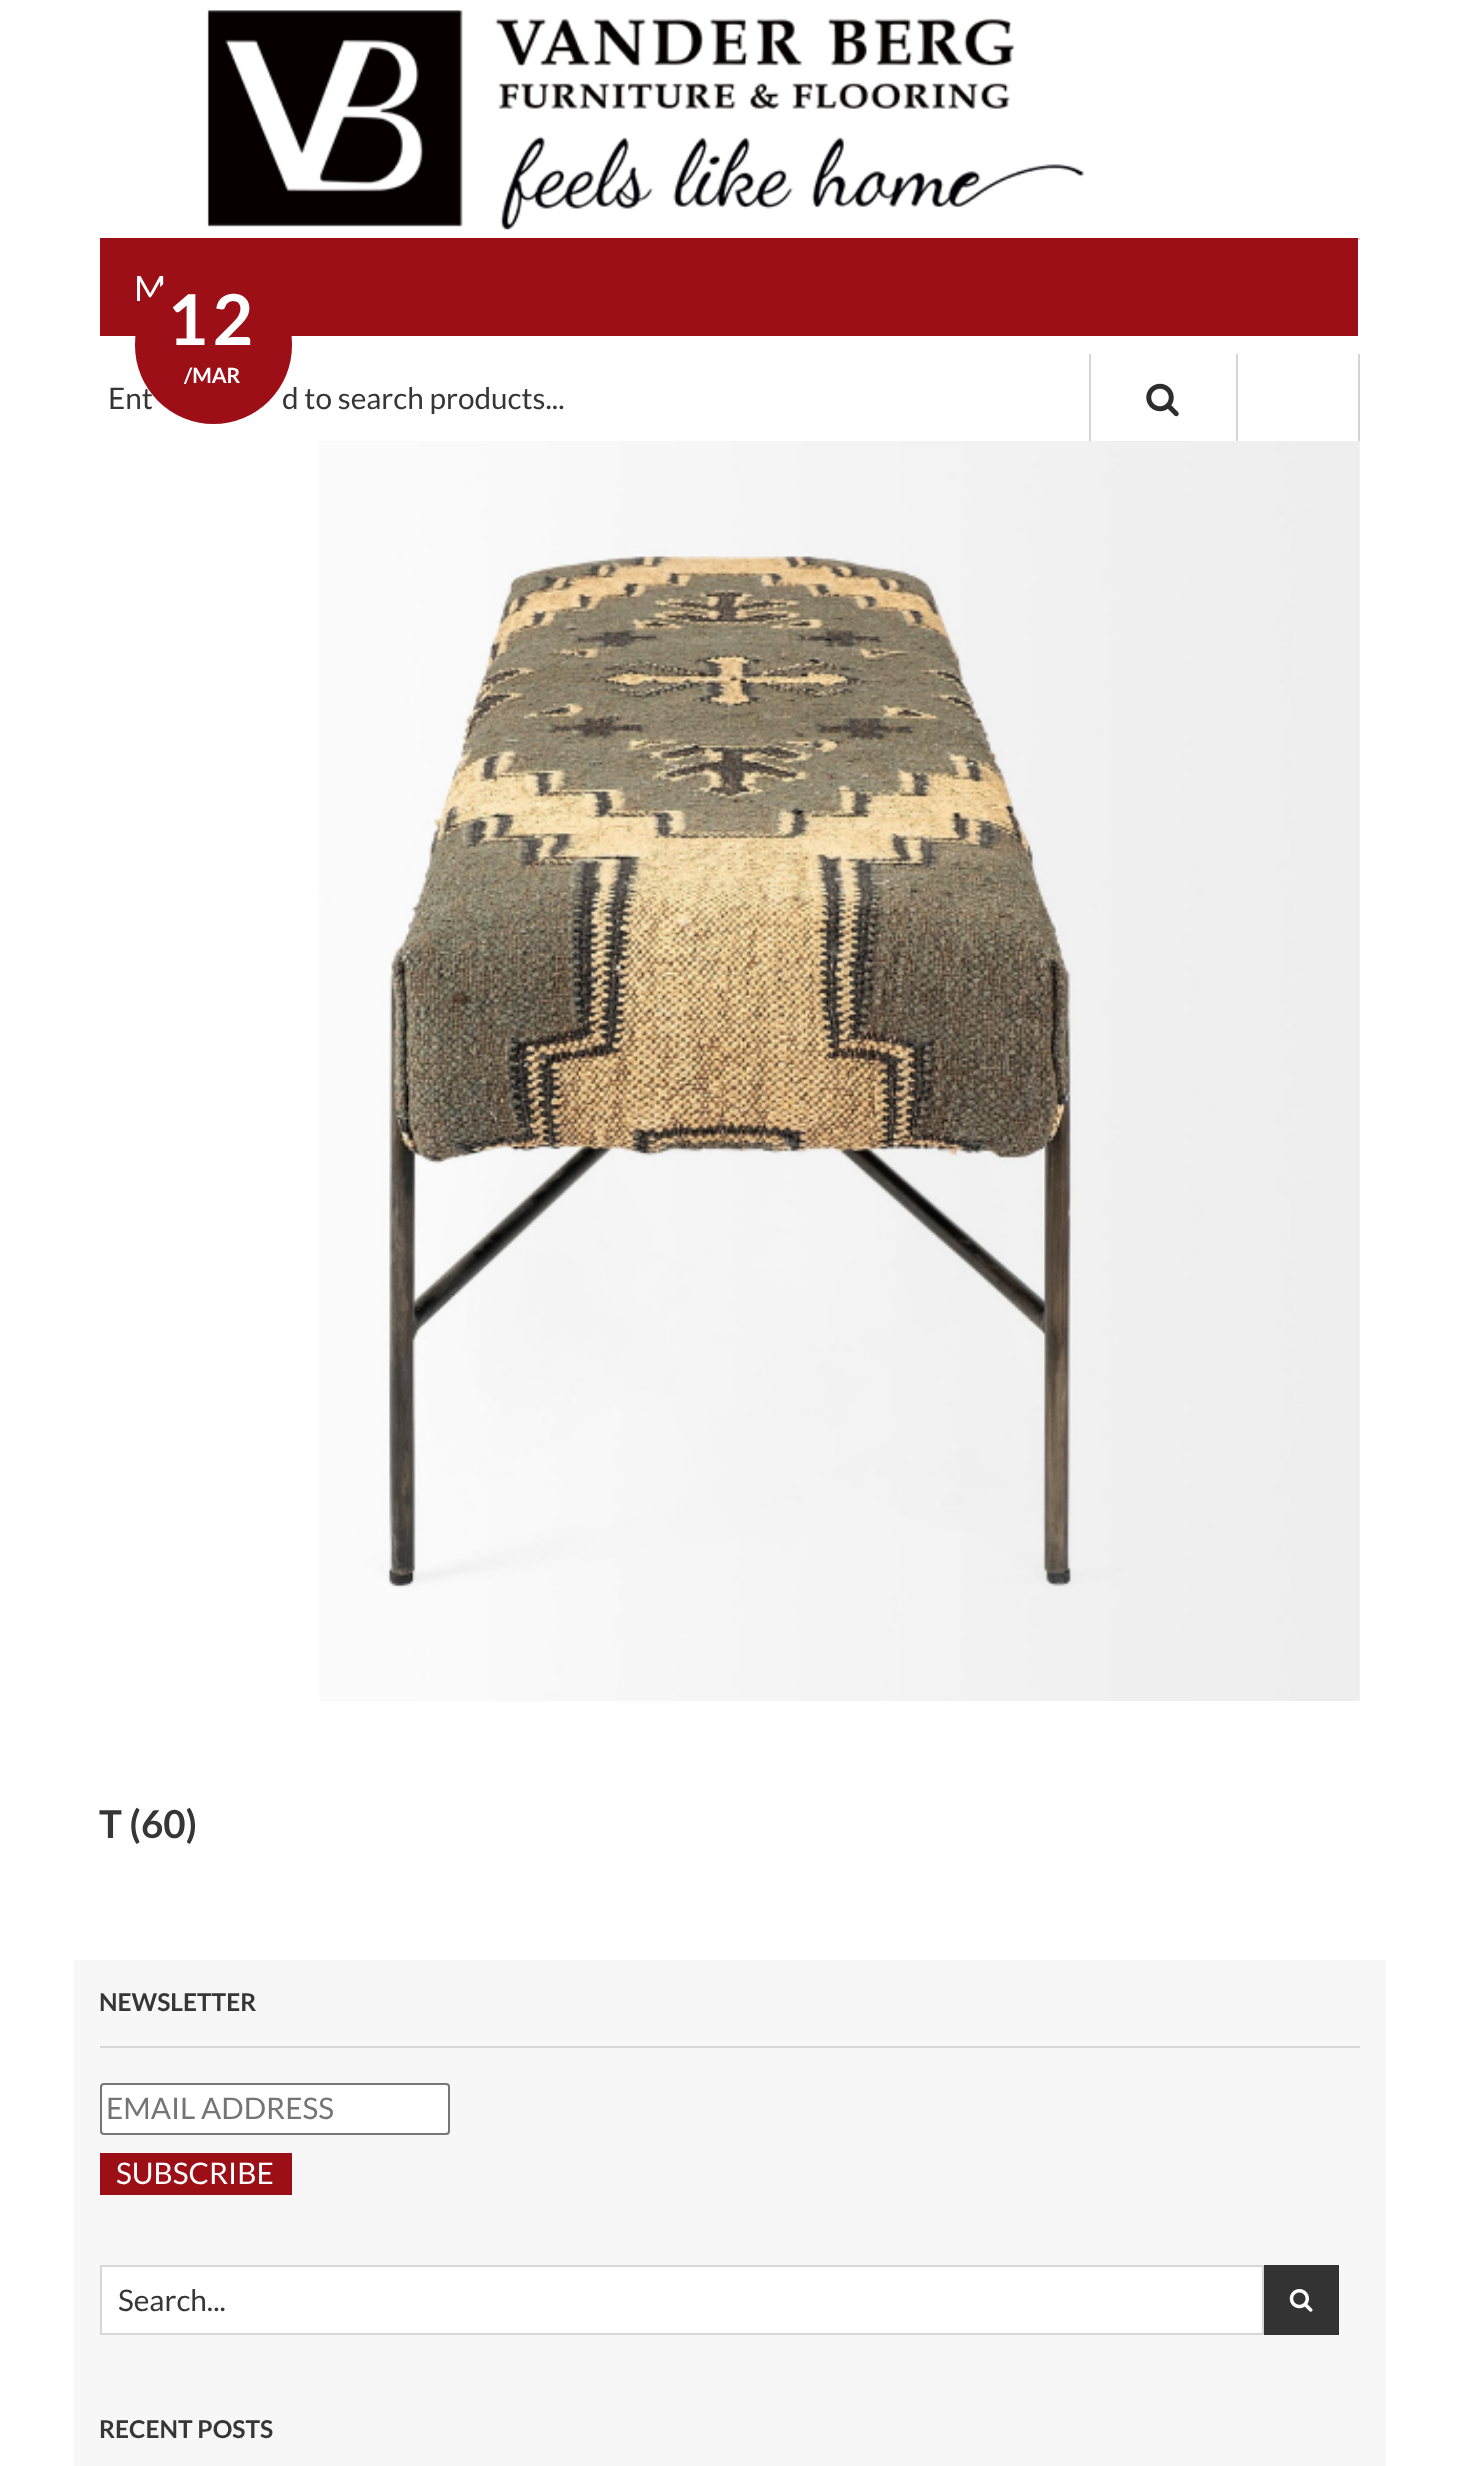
<svg xmlns="http://www.w3.org/2000/svg" width="1457" height="2466" viewBox="0 0 1457 2466">
  <style>
    .t1 { font: 35px Lato; fill: #fff; }
    .t2 { font: 29.75px Lato; fill: #363636; }
    .t3 { font: bold 70px Lato; letter-spacing: 5px; fill: #fff; }
    .t4 { font: bold 21px Lato; fill: #fff; }
    .t5 { font: bold 38.5px Lato; fill: #363636; }
    .t6 { font: bold 24.5px Lato; fill: #363636; }
    .t7 { font: 29.75px Lato; fill: #757575; }
    .t8 { font: 29.75px Lato; fill: #fff; }
  </style>
  <rect width="100%" height="100%" fill="#fff"/>
  <image x="207" y="10" width="877" height="220" href="images/1.png"/>
  <rect x="1358" y="238" width="2" height="2" fill="#d5d5d5"/>
  <rect x="100" y="238" width="1258" height="98" fill="#9c0f17"/>
  <text x="134" y="301" class="t1">M</text>
  <text x="108" y="409" class="t2">Ent</text>
  <text x="282" y="409" class="t2">d to search products...</text>
  <rect x="1236" y="354" width="2" height="87" fill="#d5d5d5"/>
  <rect x="1089" y="354" width="2" height="87" fill="#d5d5d5"/>
  <image x="1146" y="383" width="33" height="34" href="images/2.png"/>
  <rect x="1358" y="354" width="2" height="87" fill="#d5d5d5"/>
  <rect x="135" y="266" width="157" height="158" rx="78.5" fill="#9c0f17"/>
  <text x="167" y="345" class="t3">12</text>
  <text x="184" y="383" class="t4">/MAR</text>
  <text x="99" y="1838" class="t5">T (60)</text>
  <image x="319" y="441" width="1041" height="1260" href="images/3.png"/>
  <rect x="74" y="1960" width="1312" height="506" fill="#f7f7f7"/>
  <rect x="100" y="2046" width="1260" height="2" fill="#d7d7d7"/>
  <text x="99" y="2011" class="t6">NEWSLETTER</text>
  <rect x="101" y="2084" width="348" height="50" rx="3" fill="#fff" stroke="#767676" stroke-width="2"/>
  <text x="106" y="2119" class="t7">EMAIL ADDRESS</text>
  <rect x="100" y="2153" width="192" height="42" fill="#9c0f17"/>
  <text x="116" y="2184" class="t8">SUBSCRIBE</text>
  <rect x="101" y="2266" width="1162" height="68" fill="#fff" stroke="#d6d6d6" stroke-width="2"/>
  <text x="118" y="2311" class="t2">Search...</text>
  <rect x="1264" y="2265" width="75" height="70" fill="#333"/>
  <image x="1289" y="2289" width="24" height="23" href="images/4.png"/>
  <text x="99" y="2438" class="t6">RECENT POSTS</text>
</svg>
